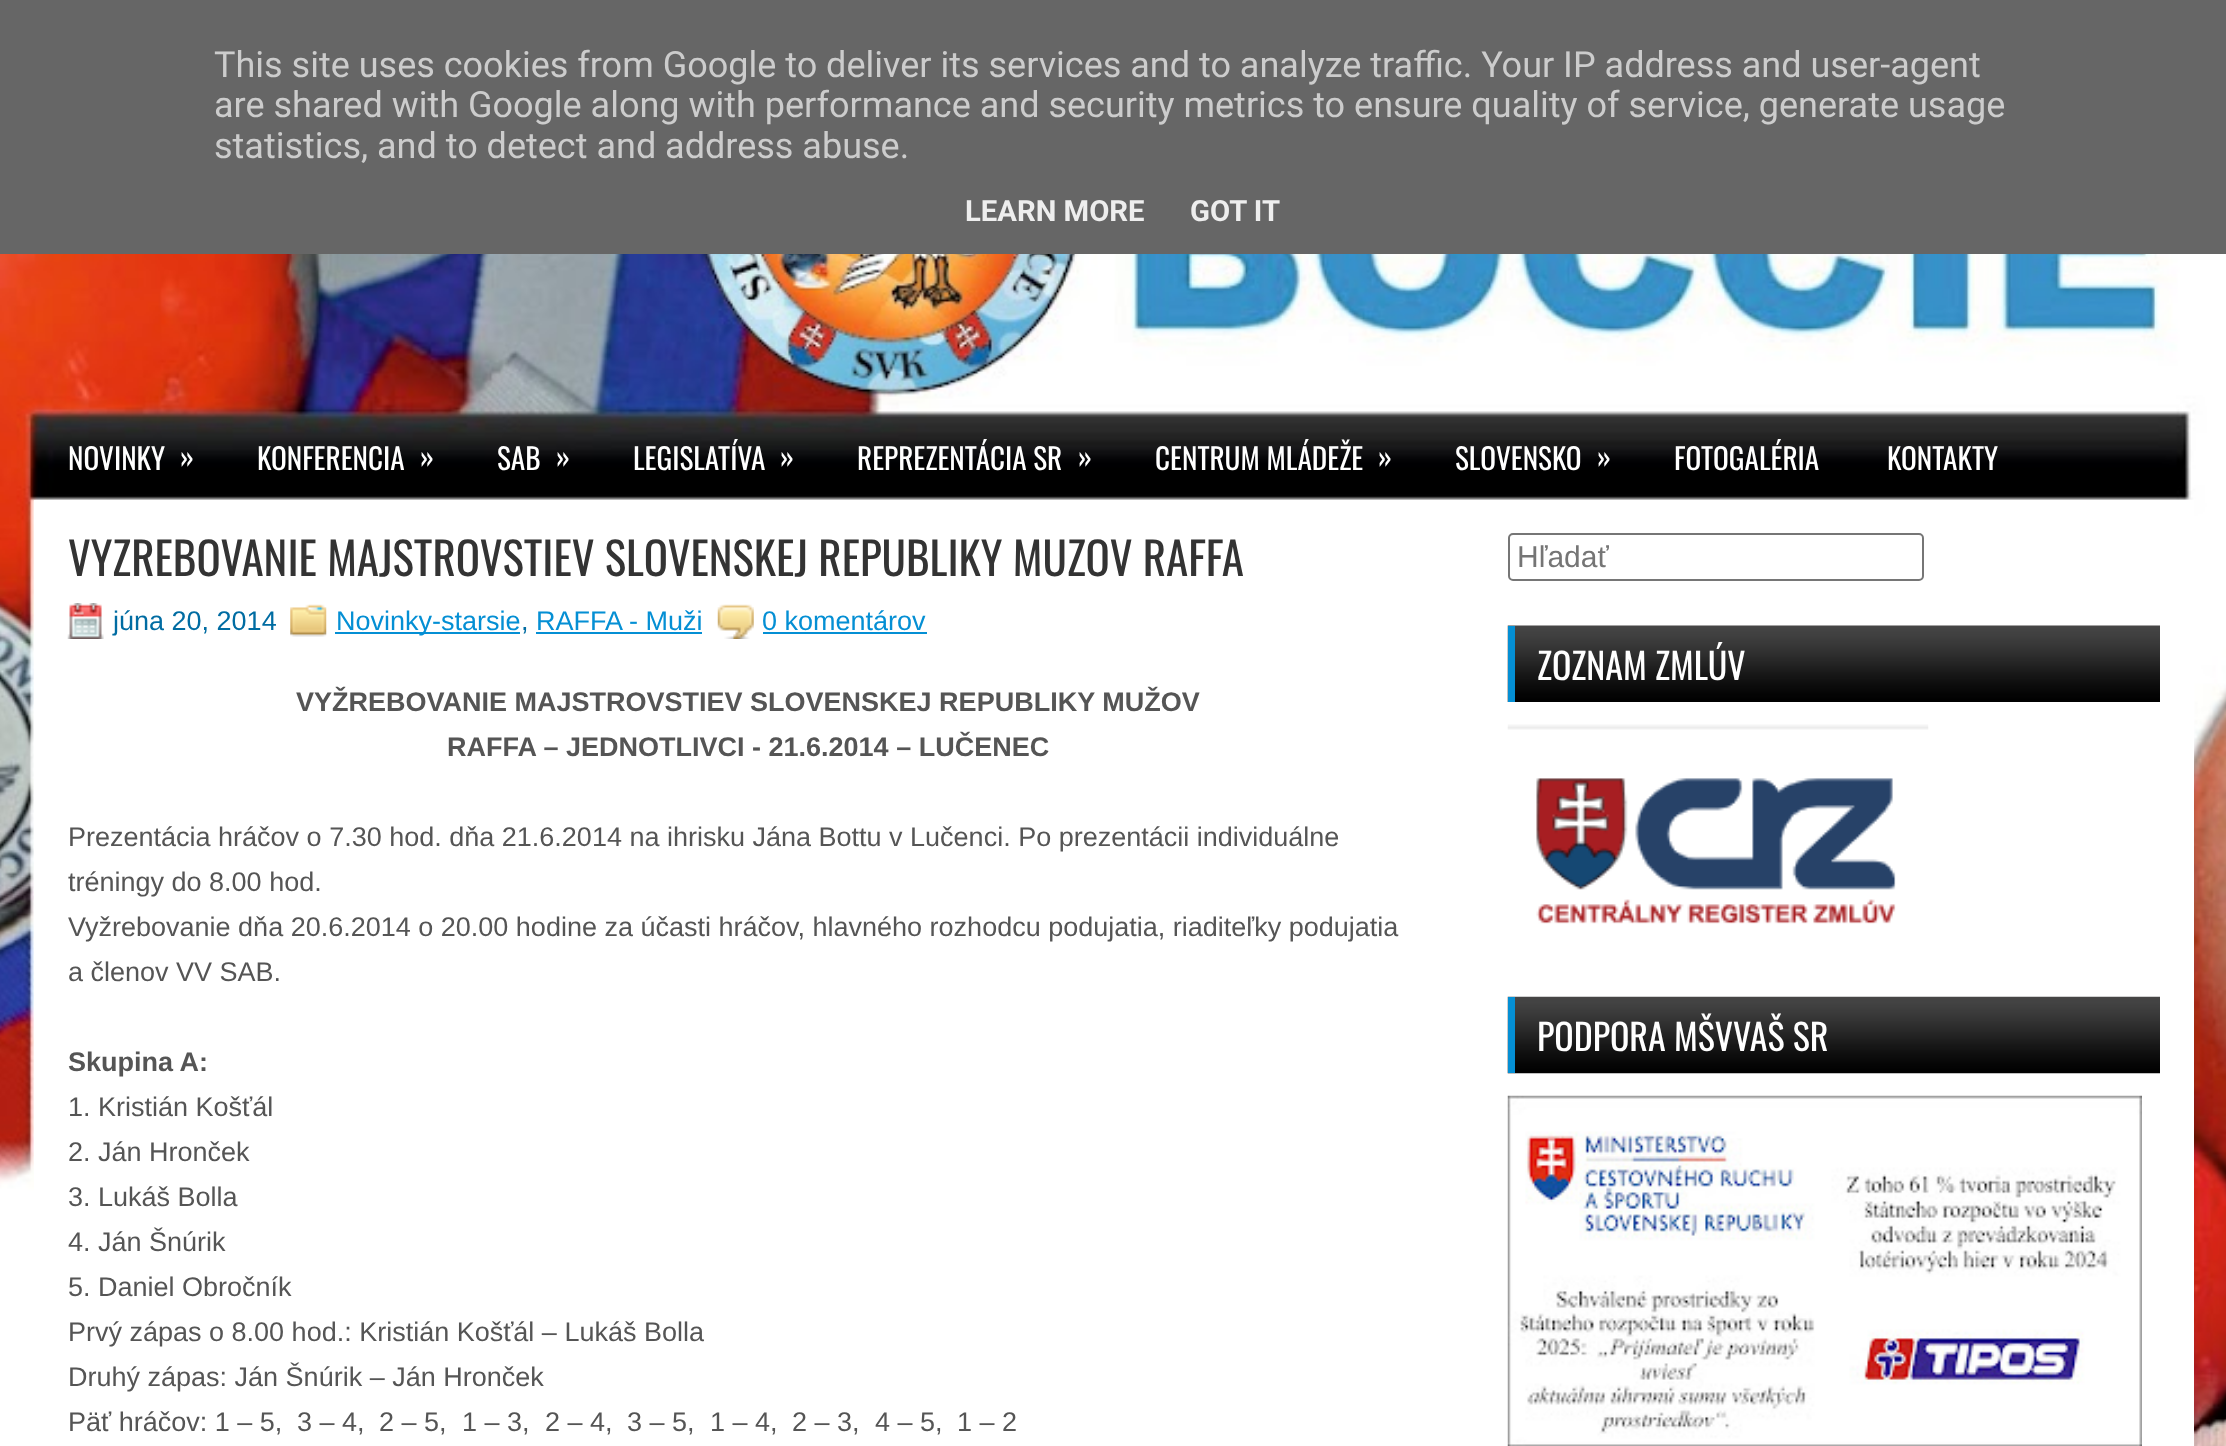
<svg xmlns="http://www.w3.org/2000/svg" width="2226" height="1446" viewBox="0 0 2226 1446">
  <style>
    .t1 { font: 36px Roboto; fill: #ccc; }
    .t2 { font: bold 29.25px Roboto; fill: #eee; }
    .t3 { font: 29.25px Oswald; fill: #fff; }
    .t4 { font: 45px Oswald; fill: #333; }
    .t5 { font: 27px Liberation Sans; fill: #006ca2; }
    .t6 { font: 27px Liberation Sans; fill: #048fd4; }
    .t7 { font: bold 27px Liberation Sans; fill: #555; }
    .t8 { font: 27px Liberation Sans; fill: #555; }
    .t9 { font: 30px Liberation Sans; fill: #757575; }
    .t10 { font: 36px Oswald; fill: #fff; }
  </style>
  <rect width="100%" height="100%" fill="#fff"/>
  <rect x="0" y="0" width="2226" height="254" fill="#666"/>
  <text x="214" y="77" class="t1">This site uses cookies from Google to deliver its services and to analyze traffic. Your IP address and user-agent</text>
  <text x="214" y="117" class="t1">are shared with Google along with performance and security metrics to ensure quality of service, generate usage</text>
  <text x="214" y="158" class="t1">statistics, and to detect and address abuse.</text>
  <text x="965" y="221" class="t2">LEARN MORE</text>
  <text x="1190" y="221" class="t2">GOT IT</text>
  <image x="0" y="254" width="2226" height="1192" href="images/1.png"/>
  <text x="68" y="470" class="t3">NOVINKY</text>
  <text x="180" y="468" class="t3">»</text>
  <text x="257" y="470" class="t3">KONFERENCIA</text>
  <text x="420" y="468" class="t3">»</text>
  <text x="497" y="470" class="t3">SAB</text>
  <text x="556" y="468" class="t3">»</text>
  <text x="633" y="470" class="t3">LEGISLATÍVA</text>
  <text x="780" y="468" class="t3">»</text>
  <text x="857" y="470" class="t3">REPREZENTÁCIA SR</text>
  <text x="1078" y="468" class="t3">»</text>
  <text x="1155" y="470" class="t3">CENTRUM MLÁDEŽE</text>
  <text x="1378" y="468" class="t3">»</text>
  <text x="1455" y="470" class="t3">SLOVENSKO</text>
  <text x="1597" y="468" class="t3">»</text>
  <text x="1674" y="470" class="t3">FOTOGALÉRIA</text>
  <text x="1887" y="470" class="t3">KONTAKTY</text>
  <rect x="34" y="500" width="2160" height="946" fill="#fff"/>
  <text x="68" y="576" class="t4">VYZREBOVANIE MAJSTROVSTIEV SLOVENSKEJ REPUBLIKY MUZOV RAFFA</text>
  <image x="67" y="603" width="37" height="36" href="images/2.png"/>
  <text x="113" y="630" class="t5">júna 20, 2014</text>
  <image x="290" y="604" width="37" height="33" href="images/3.png"/>
  <rect x="335" y="632" width="185" height="2" fill="#048fd4"/>
  <text x="336" y="630" class="t6">Novinky-starsie</text>
  <text x="521" y="630" class="t5">,</text>
  <rect x="536" y="632" width="166" height="2" fill="#048fd4"/>
  <text x="536" y="630" class="t6">RAFFA - Muži</text>
  <image x="717" y="604" width="37" height="35" href="images/4.png"/>
  <text x="762" y="630" class="t6">0 komentárov</text>
  <rect x="763" y="632" width="164" height="2" fill="#048fd4"/>
  <text x="296" y="711" class="t7">VYŽREBOVANIE MAJSTROVSTIEV SLOVENSKEJ REPUBLIKY MUŽOV</text>
  <text x="447" y="756" class="t7">RAFFA – JEDNOTLIVCI - 21.6.2014 – LUČENEC</text>
  <text x="68" y="846" class="t8">Prezentácia hráčov o 7.30 hod. dňa 21.6.2014 na ihrisku Jána Bottu v Lučenci. Po prezentácii individuálne</text>
  <text x="68" y="891" class="t8">tréningy do 8.00 hod.</text>
  <text x="68" y="936" class="t8">Vyžrebovanie dňa 20.6.2014 o 20.00 hodine za účasti hráčov, hlavného rozhodcu podujatia, riaditeľky podujatia</text>
  <text x="68" y="981" class="t8">a členov VV SAB.</text>
  <text x="68" y="1071" class="t7">Skupina A:</text>
  <text x="68" y="1116" class="t8">1. Kristián Košťál</text>
  <text x="68" y="1161" class="t8">2. Ján Hronček</text>
  <text x="68" y="1206" class="t8">3. Lukáš Bolla</text>
  <text x="68" y="1251" class="t8">4. Ján Šnúrik</text>
  <text x="68" y="1296" class="t8">5. Daniel Obročník</text>
  <text x="68" y="1341" class="t8">Prvý zápas o 8.00 hod.: Kristián Košťál – Lukáš Bolla</text>
  <text x="68" y="1386" class="t8">Druhý zápas: Ján Šnúrik – Ján Hronček</text>
  <text x="68" y="1431" class="t8">Päť hráčov: 1 – 5,</text>
  <text x="297" y="1431" class="t8">3 – 4,</text>
  <text x="379" y="1431" class="t8">2 – 5,</text>
  <text x="462" y="1431" class="t8">1 – 3,</text>
  <text x="545" y="1431" class="t8">2 – 4,</text>
  <text x="627" y="1431" class="t8">3 – 5,</text>
  <text x="710" y="1431" class="t8">1 – 4,</text>
  <text x="792" y="1431" class="t8">2 – 3,</text>
  <text x="875" y="1431" class="t8">4 – 5,</text>
  <text x="957" y="1431" class="t8">1 – 2</text>
  <rect x="1509" y="534" width="414" height="46" rx="4" fill="none" stroke="#767676" stroke-width="2"/>
  <text x="1517" y="567" class="t9">Hľadať</text>
  <image x="1507" y="625" width="653" height="77" href="images/5.png"/>
  <rect x="1508" y="626" width="7" height="76" fill="#048fd4"/>
  <text x="1537" y="680" class="t10">ZOZNAM ZMLÚV</text>
  <image x="1507" y="724" width="422" height="200" href="images/6.png"/>
  <image x="1507" y="996" width="653" height="78" href="images/7.png"/>
  <rect x="1508" y="997" width="7" height="76" fill="#048fd4"/>
  <text x="1537" y="1051" class="t10">PODPORA MŠVVAŠ SR</text>
  <image x="1507" y="1095" width="635" height="351" href="images/8.png"/>
</svg>
